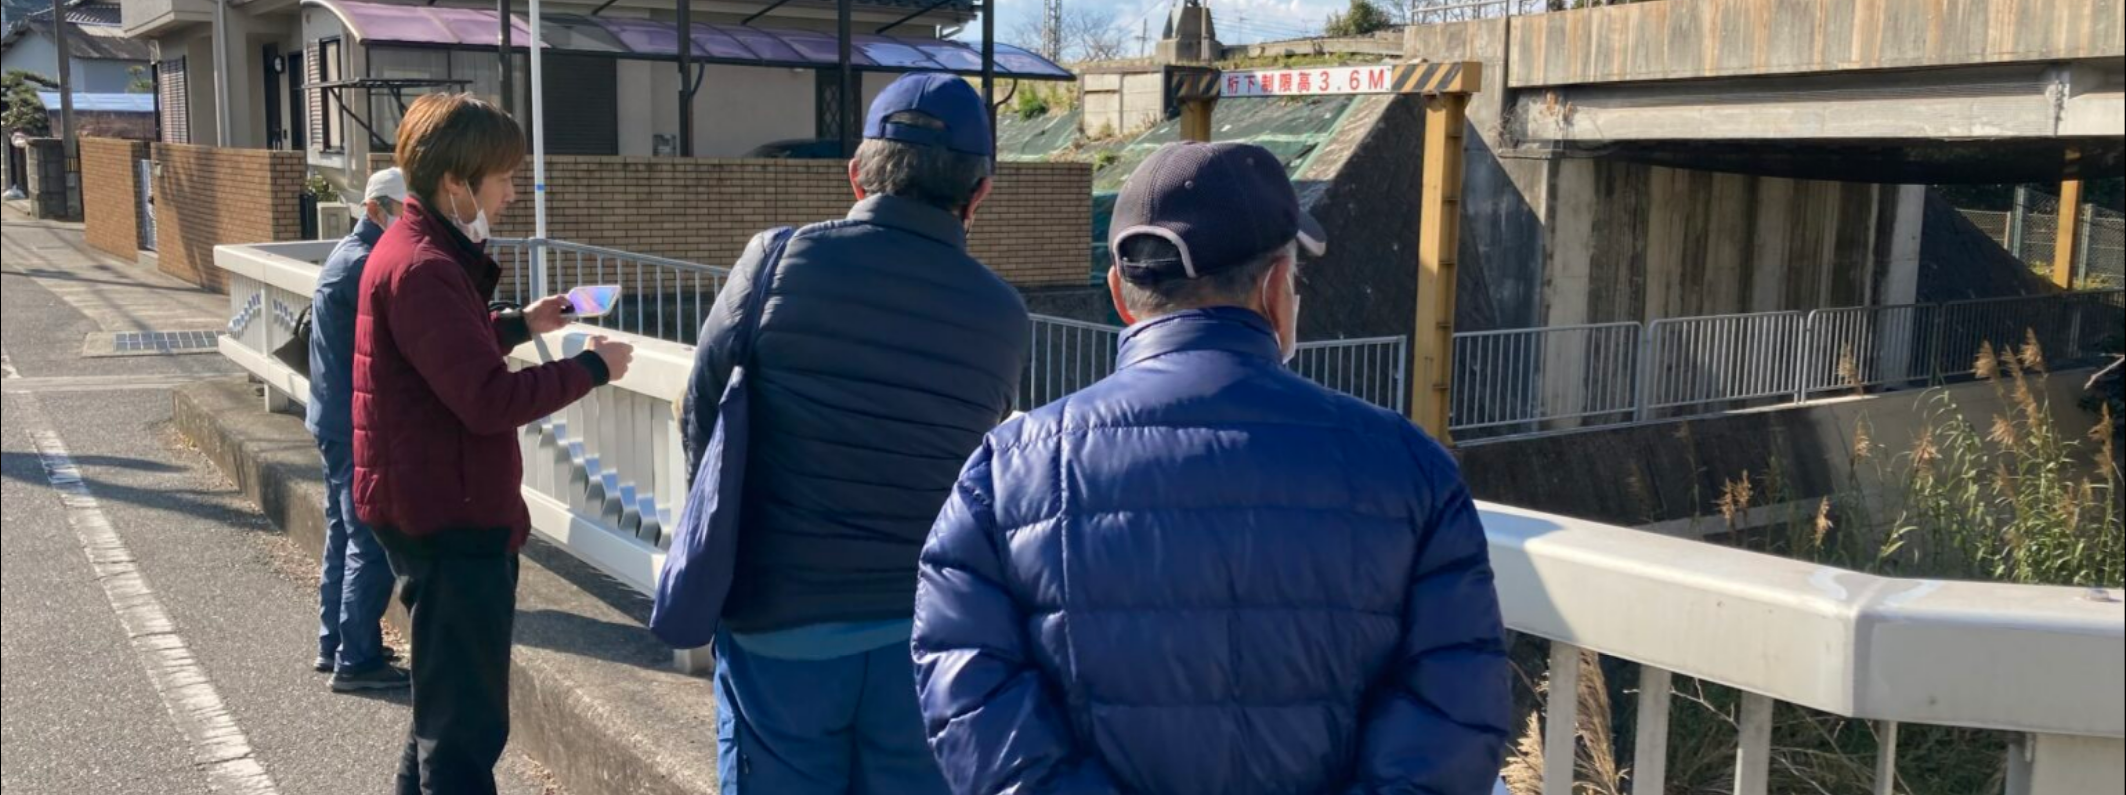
<svg xmlns="http://www.w3.org/2000/svg" width="2126" height="795" viewBox="0 0 2126 795">
  <rect width="100%" height="100%" fill="#000"/>
  <image x="1" y="0" width="2124" height="795" href="images/1.png"/>
</svg>
